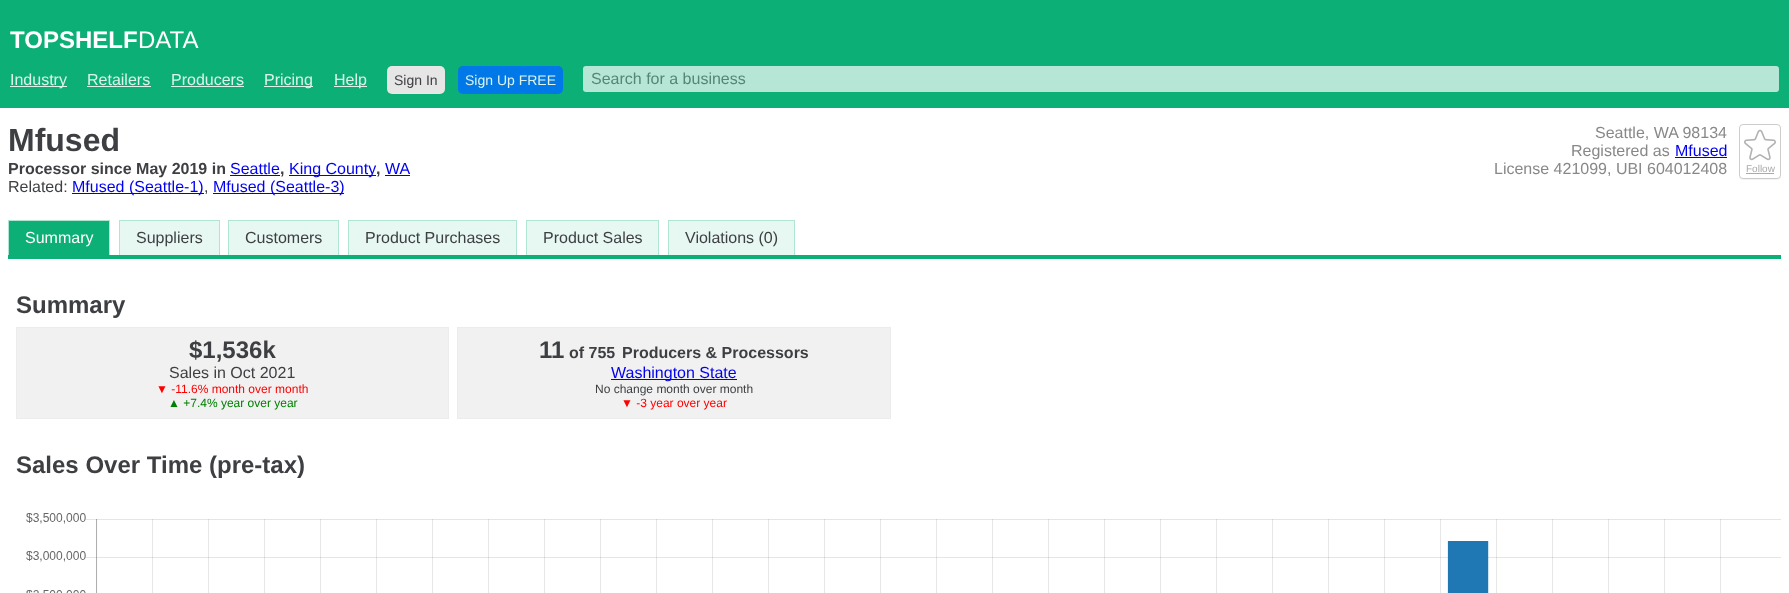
<svg xmlns="http://www.w3.org/2000/svg" width="1789" height="593" viewBox="0 0 1789 593">
  <style>
    .t1 { font: bold 24px Liberation Sans; fill: #fffdfe; }
    .t2 { font: 24px Liberation Sans; fill: #fffdfe; }
    .t3 { font: 16px Liberation Sans; fill: #dbf3ea; }
    .t4 { font: 14px Liberation Sans; fill: #3d3f42; }
    .t5 { font: 14px Liberation Sans; fill: #dbf3ea; }
    .t6 { font: 16px Liberation Sans; fill: #568675; }
    .t7 { font: bold 32px Liberation Sans; fill: #3d3f42; }
    .t8 { font: bold 16px Liberation Sans; fill: #3d3f42; }
    .t9 { font: 16px Liberation Sans; fill: #00e; }
    .t10 { font: 16px Liberation Sans; fill: #3d3f42; }
    .t11 { font: 16px Liberation Sans; fill: #888; }
    .t12 { font: 10px Liberation Sans; fill: #aaa; }
    .t13 { font: 16px Liberation Sans; fill: #fffdfe; }
    .t14 { font: bold 24px Liberation Sans; fill: #3d3f42; }
    .t15 { font: 12px Liberation Sans; fill: #f00; }
    .t16 { font: 12px Liberation Sans; fill: #008000; }
    .t17 { font: 12px Liberation Sans; fill: #3d3f42; }
  </style>
  <defs>
    <clipPath id="clip1"><path d="M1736 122H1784V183H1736ZM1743 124H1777C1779 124 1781 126 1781 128V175C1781 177 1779 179 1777 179H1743C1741 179 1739 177 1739 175V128C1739 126 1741 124 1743 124Z" clip-rule="evenodd"/></clipPath>
  </defs>
  <rect width="100%" height="100%" fill="#fff"/>
  <rect x="0" y="0" width="1789" height="108" fill="#0caf76"/>
  <text x="10" y="48" class="t1">TOPSHELF</text>
  <text x="138" y="48" class="t2">DATA</text>
  <rect x="10" y="86" width="57" height="1" fill="#dbf3ea"/>
  <text x="10" y="85" class="t3">Industry</text>
  <text x="87" y="85" class="t3">Retailers</text>
  <rect x="87" y="86" width="64" height="1" fill="#dbf3ea"/>
  <text x="171" y="85" class="t3">Producers</text>
  <rect x="171" y="86" width="73" height="1" fill="#dbf3ea"/>
  <rect x="264" y="86" width="49" height="1" fill="#dbf3ea"/>
  <text x="264" y="85" class="t3">Pricing</text>
  <rect x="334" y="86" width="33" height="1" fill="#dbf3ea"/>
  <text x="334" y="85" class="t3">Help</text>
  <rect x="387" y="66" width="58" height="28" rx="5" fill="#e6e6e6"/>
  <text x="394" y="85" class="t4">Sign In</text>
  <rect x="458" y="66" width="105" height="28" rx="5" fill="#0078e7"/>
  <text x="465" y="85" class="t5">Sign Up FREE</text>
  <rect x="583" y="66" width="1196" height="26" rx="3" fill="#b6e7d6"/>
  <text x="591" y="84" class="t6">Search for a business</text>
  <text x="8" y="151" class="t7">Mfused</text>
  <text x="8" y="174" class="t8">Processor since May 2019 in</text>
  <text x="230" y="174" class="t9">Seattle</text>
  <rect x="230" y="175" width="50" height="1" fill="#00e"/>
  <text x="280" y="174" class="t8">,</text>
  <rect x="289" y="175" width="87" height="1" fill="#00e"/>
  <text x="289" y="174" class="t9">King County</text>
  <text x="376" y="174" class="t8">,</text>
  <text x="385" y="174" class="t9">WA</text>
  <rect x="385" y="175" width="25" height="1" fill="#00e"/>
  <text x="8" y="192" class="t10">Related:</text>
  <rect x="72" y="193" width="132" height="1" fill="#00e"/>
  <text x="72" y="192" class="t9">Mfused (Seattle-1)</text>
  <text x="204" y="192" class="t10">,</text>
  <rect x="213" y="193" width="131" height="1" fill="#00e"/>
  <text x="213" y="192" class="t9">Mfused (Seattle-3)</text>
  <text x="1595" y="138" class="t11">Seattle, WA 98134</text>
  <text x="1571" y="156" class="t11">Registered as</text>
  <text x="1675" y="156" class="t9">Mfused</text>
  <rect x="1675" y="157" width="52" height="1" fill="#00e"/>
  <text x="1494" y="174" class="t11">License 421099, UBI 604012408</text>
  <g clip-path="url(#clip1)">
    <rect x="1739" y="125" width="42" height="55" rx="4" fill="#0000000d" filter="blur(0.5px)"/>
  </g>
  <rect x="1739.5" y="124.5" width="41" height="54" rx="3.5" fill="none" stroke="#ccc"/>
  <image x="1744" y="129" width="32" height="32" href="images/1.png"/>
  <text x="1746" y="172" class="t12">Follow</text>
  <rect x="1746" y="173" width="28" height="1" fill="#aaa"/>
  <rect x="8" y="255" width="1773" height="4" fill="#0caf76"/>
  <rect x="8" y="220" width="102" height="35" fill="#e7f7f1"/>
  <path d="M8 220H110L109 221H9Z" fill="#b0e5d2"/>
  <path d="M110 220V255H109V221Z" fill="#0caf7640"/>
  <path d="M8 255V220L9 221V255Z" fill="#0caf7640"/>
  <rect x="9" y="221" width="100" height="34" fill="#0caf76"/>
  <text x="25" y="243" class="t13">Summary</text>
  <rect x="119" y="220" width="101" height="35" fill="#e7f7f1"/>
  <path d="M119 220H220L219 221H120Z" fill="#b0e5d2"/>
  <path d="M220 220V255H219V221Z" fill="#0caf7640"/>
  <path d="M119 255V220L120 221V255Z" fill="#0caf7640"/>
  <text x="136" y="243" class="t10">Suppliers</text>
  <rect x="228" y="220" width="111" height="35" fill="#e7f7f1"/>
  <path d="M228 220H339L338 221H229Z" fill="#b0e5d2"/>
  <path d="M339 220V255H338V221Z" fill="#0caf7640"/>
  <path d="M228 255V220L229 221V255Z" fill="#0caf7640"/>
  <text x="245" y="243" class="t10">Customers</text>
  <rect x="348" y="220" width="169" height="35" fill="#e7f7f1"/>
  <path d="M348 220H517L516 221H349Z" fill="#b0e5d2"/>
  <path d="M517 220V255H516V221Z" fill="#0caf7640"/>
  <path d="M348 255V220L349 221V255Z" fill="#0caf7640"/>
  <text x="365" y="243" class="t10">Product Purchases</text>
  <rect x="526" y="220" width="133" height="35" fill="#e7f7f1"/>
  <path d="M526 220H659L658 221H527Z" fill="#b0e5d2"/>
  <path d="M659 220V255H658V221Z" fill="#0caf7640"/>
  <path d="M526 255V220L527 221V255Z" fill="#0caf7640"/>
  <text x="543" y="243" class="t10">Product Sales</text>
  <rect x="668" y="220" width="127" height="35" fill="#e7f7f1"/>
  <path d="M668 220H795L794 221H669Z" fill="#b0e5d2"/>
  <path d="M795 220V255H794V221Z" fill="#0caf7640"/>
  <path d="M668 255V220L669 221V255Z" fill="#0caf7640"/>
  <text x="685" y="243" class="t10">Violations (0)</text>
  <text x="16" y="313" class="t14">Summary</text>
  <rect x="16.5" y="327.5" width="432" height="91" fill="#f1f1f1" stroke="#ececec"/>
  <text x="189" y="358" class="t14">$1,536k</text>
  <text x="169" y="378" class="t10">Sales in Oct 2021</text>
  <text x="156" y="393" class="t15">▼ -11.6% month over month</text>
  <text x="168" y="407" class="t16">▲ +7.4% year over year</text>
  <rect x="457.5" y="327.5" width="433" height="91" fill="#f1f1f1" stroke="#ececec"/>
  <text x="539" y="358" class="t14">11</text>
  <text x="569" y="358" class="t8">of 755</text>
  <text x="622" y="358" class="t8">Producers &amp; Processors</text>
  <rect x="611" y="379" width="126" height="1" fill="#00e"/>
  <text x="611" y="378" class="t9">Washington State</text>
  <text x="595" y="393" class="t17">No change month over month</text>
  <text x="621" y="407" class="t15">▼ -3 year over year</text>
  <text x="16" y="473" class="t14">Sales Over Time (pre-tax)</text>
  <image x="26" y="513" width="1755" height="80" href="images/2.png"/>
</svg>
